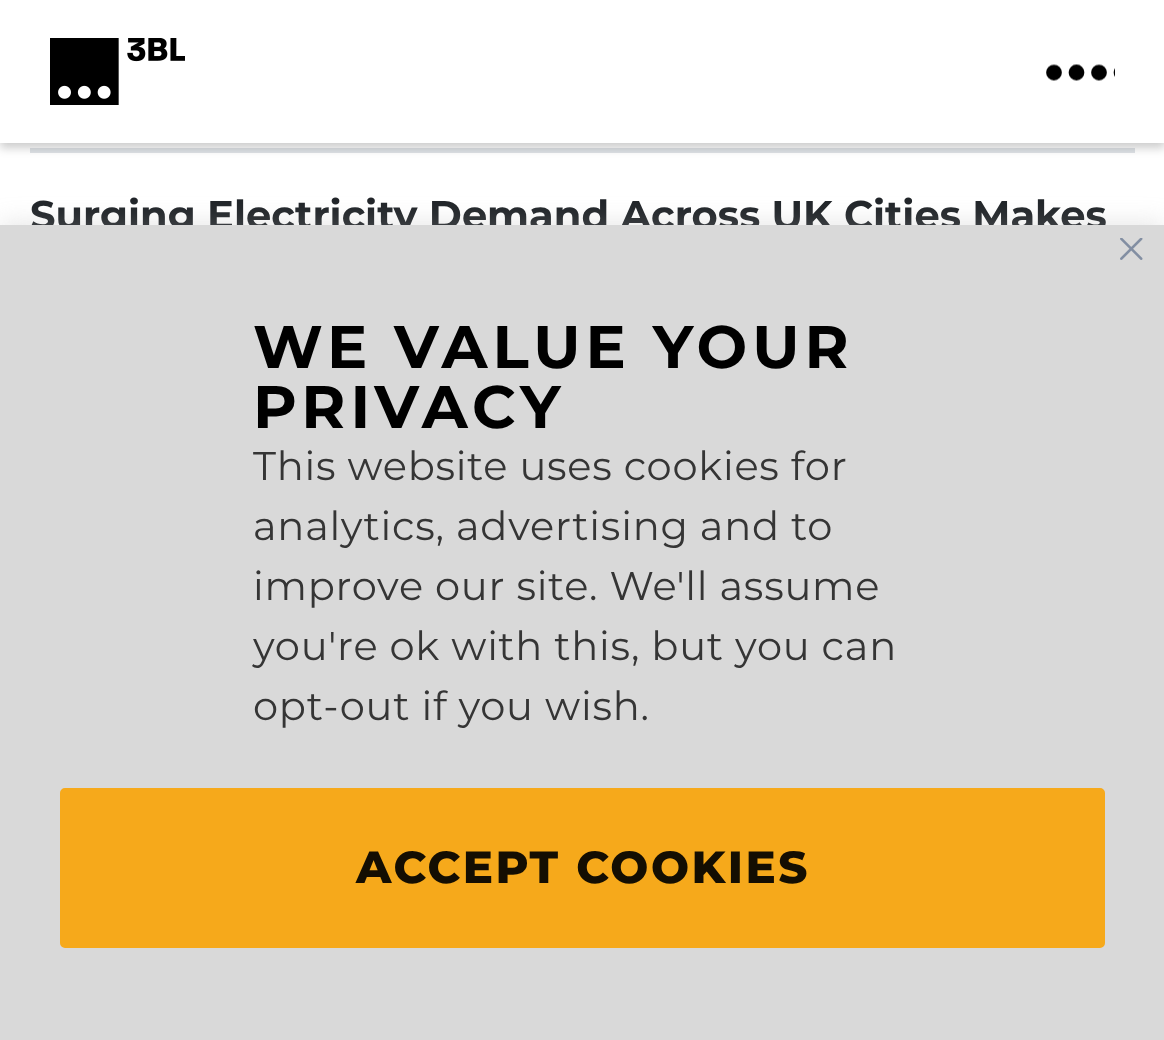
<svg xmlns="http://www.w3.org/2000/svg" width="1164" height="1040" viewBox="0 0 1164 1040">
  <style>
    .t1 { font: bold 40px Montserrat; fill: #212529; }
    .t2 { font: bold 60px Montserrat; letter-spacing: 5px; fill: #000; }
    .t3 { font: 40px Montserrat; letter-spacing: 0.75px; fill: #353535; }
    .t4 { font: 800 45px Montserrat; letter-spacing: 2.5px; fill: #140e02; }
  </style>
  <rect width="100%" height="100%" fill="#fff"/>
  <rect x="30" y="148" width="1105" height="5" fill="#dee2e6"/>
  <rect x="0" y="5" width="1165" height="143" fill="#00000033" filter="blur(5px)"/>
  <rect x="0" y="0" width="1164" height="143" fill="#fff"/>
  <image x="50" y="38" width="135" height="67" href="images/1.png"/>
  <image x="1046" y="64" width="69" height="17" href="images/2.png"/>
  <text x="30" y="229" class="t1">Surging Electricity Demand Across UK Cities Makes</text>
  <rect x="0" y="223" width="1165" height="815" fill="#acabab4d" filter="blur(12.5px)"/>
  <rect x="0" y="225" width="1164" height="815" fill="#d9d9d9"/>
  <image x="1120" y="238" width="23" height="22" href="images/3.png"/>
  <text x="253" y="368" class="t2">WE VALUE YOUR</text>
  <text x="253" y="428" class="t2">PRIVACY</text>
  <text x="253" y="480" class="t3">This website uses cookies for</text>
  <text x="253" y="540" class="t3">analytics, advertising and to</text>
  <text x="253" y="600" class="t3">improve our site. We'll assume</text>
  <text x="253" y="660" class="t3">you're ok with this, but you can</text>
  <text x="253" y="720" class="t3">opt-out if you wish.</text>
  <rect x="62.5" y="790.5" width="1040" height="155" rx="2.5" fill="#f6a91b" stroke="#f6a91b" stroke-width="5"/>
  <text x="356" y="883" class="t4">ACCEPT COOKIES</text>
</svg>
